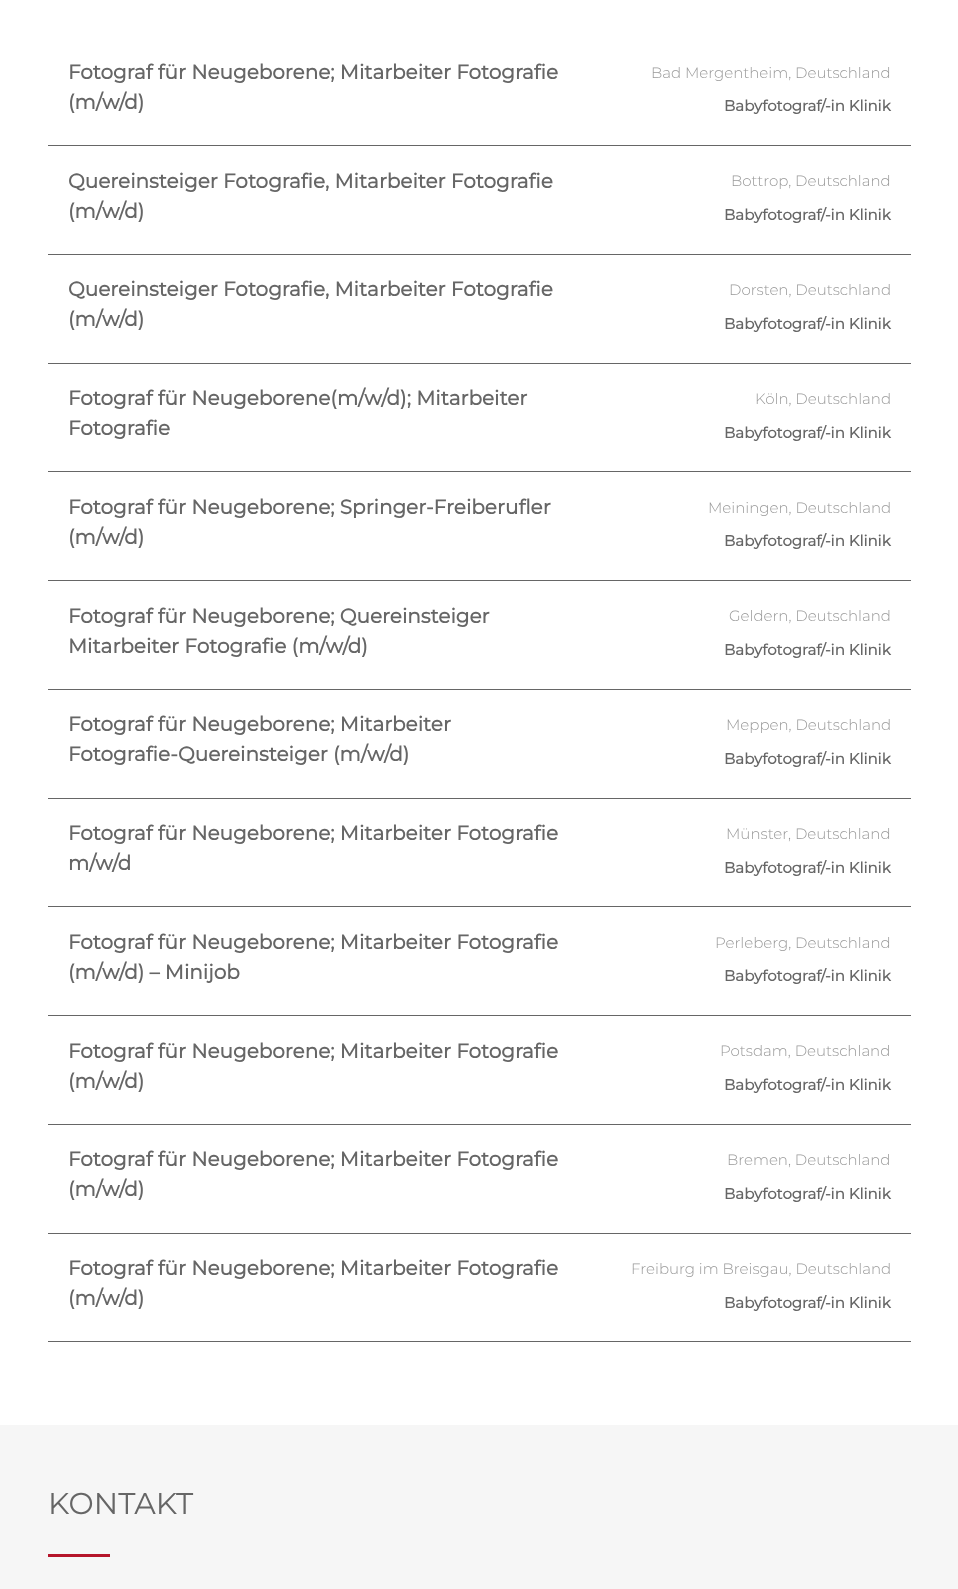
<svg xmlns="http://www.w3.org/2000/svg" width="958" height="1589" viewBox="0 0 958 1589">
  <style>
    .t1 { font: bold 20px Montserrat; fill: #666; }
    .t2 { font: 300 15px Montserrat; fill: #999; }
    .t3 { font: bold 15px Montserrat; fill: #666; }
    .t4 { font: 30px Montserrat; fill: #666; }
  </style>
  <rect width="100%" height="100%" fill="#fff"/>
  <rect x="48" y="145" width="863" height="1" fill="#666"/>
  <text x="68" y="79" class="t1">Fotograf für Neugeborene; Mitarbeiter Fotografie</text>
  <text x="68" y="109" class="t1">(m/w/d)</text>
  <text x="651" y="78" class="t2">Bad Mergentheim, Deutschland</text>
  <text x="724" y="111" class="t3">Babyfotograf/-in Klinik</text>
  <rect x="48" y="254" width="863" height="1" fill="#666"/>
  <text x="68" y="188" class="t1">Quereinsteiger Fotografie, Mitarbeiter Fotografie</text>
  <text x="68" y="218" class="t1">(m/w/d)</text>
  <text x="731" y="186" class="t2">Bottrop, Deutschland</text>
  <text x="724" y="220" class="t3">Babyfotograf/-in Klinik</text>
  <rect x="48" y="363" width="863" height="1" fill="#666"/>
  <text x="68" y="296" class="t1">Quereinsteiger Fotografie, Mitarbeiter Fotografie</text>
  <text x="68" y="326" class="t1">(m/w/d)</text>
  <text x="729" y="295" class="t2">Dorsten, Deutschland</text>
  <text x="724" y="329" class="t3">Babyfotograf/-in Klinik</text>
  <rect x="48" y="471" width="863" height="1" fill="#666"/>
  <text x="68" y="405" class="t1">Fotograf für Neugeborene(m/w/d); Mitarbeiter</text>
  <text x="68" y="435" class="t1">Fotografie</text>
  <text x="755" y="404" class="t2">Köln, Deutschland</text>
  <text x="724" y="438" class="t3">Babyfotograf/-in Klinik</text>
  <rect x="48" y="580" width="863" height="1" fill="#666"/>
  <text x="68" y="514" class="t1">Fotograf für Neugeborene; Springer-Freiberufler</text>
  <text x="68" y="544" class="t1">(m/w/d)</text>
  <text x="708" y="513" class="t2">Meiningen, Deutschland</text>
  <text x="724" y="546" class="t3">Babyfotograf/-in Klinik</text>
  <rect x="48" y="689" width="863" height="1" fill="#666"/>
  <text x="68" y="623" class="t1">Fotograf für Neugeborene; Quereinsteiger</text>
  <text x="68" y="653" class="t1">Mitarbeiter Fotografie (m/w/d)</text>
  <text x="729" y="621" class="t2">Geldern, Deutschland</text>
  <text x="724" y="655" class="t3">Babyfotograf/-in Klinik</text>
  <rect x="48" y="798" width="863" height="1" fill="#666"/>
  <text x="68" y="731" class="t1">Fotograf für Neugeborene; Mitarbeiter</text>
  <text x="68" y="761" class="t1">Fotografie-Quereinsteiger (m/w/d)</text>
  <text x="726" y="730" class="t2">Meppen, Deutschland</text>
  <text x="724" y="764" class="t3">Babyfotograf/-in Klinik</text>
  <rect x="48" y="906" width="863" height="1" fill="#666"/>
  <text x="68" y="840" class="t1">Fotograf für Neugeborene; Mitarbeiter Fotografie</text>
  <text x="68" y="870" class="t1">m/w/d</text>
  <text x="726" y="839" class="t2">Münster, Deutschland</text>
  <text x="724" y="873" class="t3">Babyfotograf/-in Klinik</text>
  <rect x="48" y="1015" width="863" height="1" fill="#666"/>
  <text x="68" y="949" class="t1">Fotograf für Neugeborene; Mitarbeiter Fotografie</text>
  <text x="68" y="979" class="t1">(m/w/d) – Minijob</text>
  <text x="715" y="948" class="t2">Perleberg, Deutschland</text>
  <text x="724" y="981" class="t3">Babyfotograf/-in Klinik</text>
  <rect x="48" y="1124" width="863" height="1" fill="#666"/>
  <text x="68" y="1058" class="t1">Fotograf für Neugeborene; Mitarbeiter Fotografie</text>
  <text x="68" y="1088" class="t1">(m/w/d)</text>
  <text x="720" y="1056" class="t2">Potsdam, Deutschland</text>
  <text x="724" y="1090" class="t3">Babyfotograf/-in Klinik</text>
  <rect x="48" y="1233" width="863" height="1" fill="#666"/>
  <text x="68" y="1166" class="t1">Fotograf für Neugeborene; Mitarbeiter Fotografie</text>
  <text x="68" y="1196" class="t1">(m/w/d)</text>
  <text x="727" y="1165" class="t2">Bremen, Deutschland</text>
  <text x="724" y="1199" class="t3">Babyfotograf/-in Klinik</text>
  <rect x="48" y="1341" width="863" height="1" fill="#666"/>
  <text x="68" y="1275" class="t1">Fotograf für Neugeborene; Mitarbeiter Fotografie</text>
  <text x="68" y="1305" class="t1">(m/w/d)</text>
  <text x="631" y="1274" class="t2">Freiburg im Breisgau, Deutschland</text>
  <text x="724" y="1308" class="t3">Babyfotograf/-in Klinik</text>
  <rect x="0" y="1425" width="958" height="164" fill="#f6f6f6"/>
  <text x="48" y="1514" class="t4">KONTAKT</text>
  <rect x="48" y="1554" width="62" height="3" fill="#b5152b"/>
</svg>
